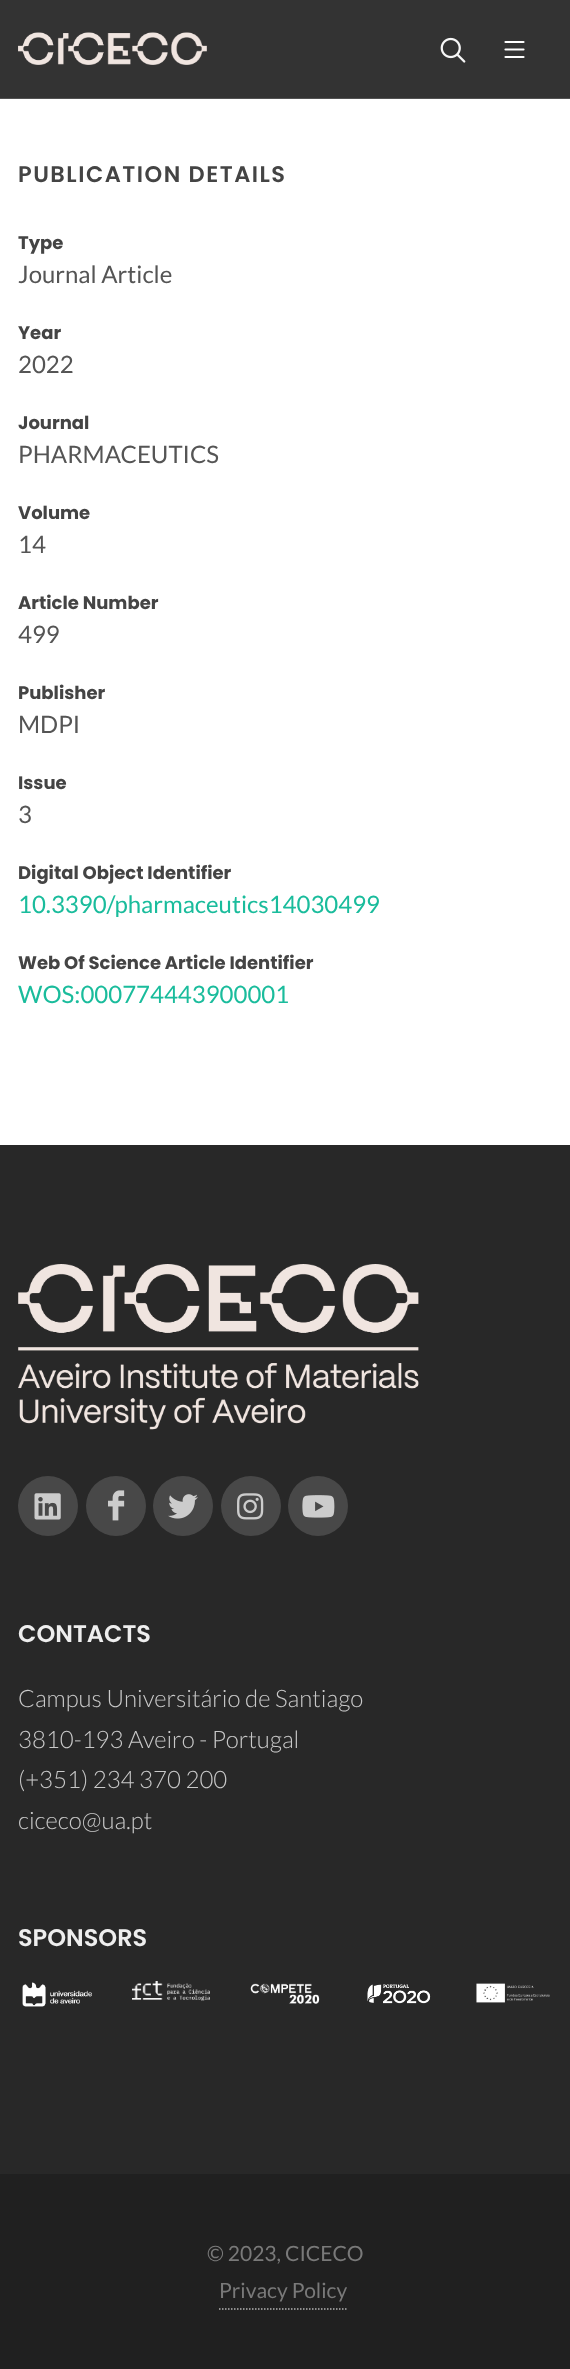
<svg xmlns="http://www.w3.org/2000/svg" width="570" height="2369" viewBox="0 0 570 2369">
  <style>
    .t1 { font: 600 22.5px Poppins; letter-spacing: 1.5px; fill: #444; }
    .t2 { font: bold 18px Poppins; fill: #444; }
    .t3 { font: 24px Lato; fill: #555; }
    .t4 { font: 24px Lato; fill: #1abc9c; }
    .t5 { font: 600 24px Poppins; fill: #eee; }
    .t6 { font: 300 24px Lato; fill: #c9c9c9; }
    .t7 { font: 21px Lato; fill: #797979; }
  </style>
  <rect width="100%" height="100%" fill="#fff"/>
  <rect x="0" y="0" width="570" height="98" fill="#333"/>
  <rect x="0" y="98" width="570" height="1" fill="#525252"/>
  <image x="18" y="32" width="189" height="33" href="images/1.png"/>
  <image x="440" y="37" width="26" height="26" href="images/2.png"/>
  <path d="M505.5 42H523.5M505.5 49.5H523.5M523.5 57H505.5" fill="none" stroke="#fff" stroke-width="2.2" stroke-linecap="round"/>
  <text x="18" y="182" class="t1">PUBLICATION DETAILS</text>
  <text x="18" y="249" class="t2">Type</text>
  <text x="18" y="283" class="t3">Journal Article</text>
  <text x="18" y="339" class="t2">Year</text>
  <text x="18" y="373" class="t3">2022</text>
  <text x="18" y="429" class="t2">Journal</text>
  <text x="18" y="463" class="t3">PHARMACEUTICS</text>
  <text x="18" y="519" class="t2">Volume</text>
  <text x="18" y="553" class="t3">14</text>
  <text x="18" y="609" class="t2">Article Number</text>
  <text x="18" y="643" class="t3">499</text>
  <text x="18" y="699" class="t2">Publisher</text>
  <text x="18" y="733" class="t3">MDPI</text>
  <text x="18" y="789" class="t2">Issue</text>
  <text x="18" y="823" class="t3">3</text>
  <text x="18" y="879" class="t2">Digital Object Identifier</text>
  <text x="18" y="913" class="t4">10.3390/pharmaceutics14030499</text>
  <text x="18" y="969" class="t2">Web Of Science Article Identifier</text>
  <text x="18" y="1003" class="t4">WOS:000774443900001</text>
  <rect x="0" y="1145" width="570" height="1029" fill="#282828"/>
  <image x="18" y="1264" width="401" height="166" href="images/3.png"/>
  <circle cx="48" cy="1506" r="30" fill="#484848"/>
  <image x="34" y="1493" width="27" height="27" href="images/4.png"/>
  <circle cx="116" cy="1506" r="30" fill="#484848"/>
  <image x="108" y="1490" width="17" height="31" href="images/5.png"/>
  <circle cx="183" cy="1506" r="30" fill="#484848"/>
  <image x="168" y="1494" width="30" height="25" href="images/6.png"/>
  <circle cx="251" cy="1506" r="30" fill="#484848"/>
  <image x="237" y="1493" width="27" height="27" href="images/7.png"/>
  <circle cx="318" cy="1506" r="30" fill="#484848"/>
  <image x="302" y="1495" width="33" height="23" href="images/8.png"/>
  <text x="18" y="1642" class="t5">CONTACTS</text>
  <text x="18" y="1707" class="t6">Campus Universitário de Santiago</text>
  <text x="18" y="1748" class="t6">3810-193 Aveiro - Portugal</text>
  <text x="18" y="1788" class="t6">(+351) 234 370 200</text>
  <text x="18" y="1829" class="t6">ciceco@ua.pt</text>
  <text x="18" y="1946" class="t5">SPONSORS</text>
  <image x="22" y="1982" width="70" height="25" href="images/9.png"/>
  <image x="132" y="1981" width="78" height="20" href="images/10.png"/>
  <image x="250" y="1983" width="70" height="21" href="images/11.png"/>
  <image x="367" y="1984" width="64" height="20" href="images/12.png"/>
  <image x="476" y="1983" width="74" height="20" href="images/13.png"/>
  <rect x="0" y="2174" width="570" height="195" fill="#202020"/>
  <text x="207" y="2261" class="t7">© 2023, CICECO</text>
  <path d="M219 2309H346.5" fill="none" stroke="#b1b1b1" stroke-width="1.5" stroke-dasharray="1.5 1.5"/>
  <text x="219" y="2298" class="t7">Privacy Policy</text>
</svg>
